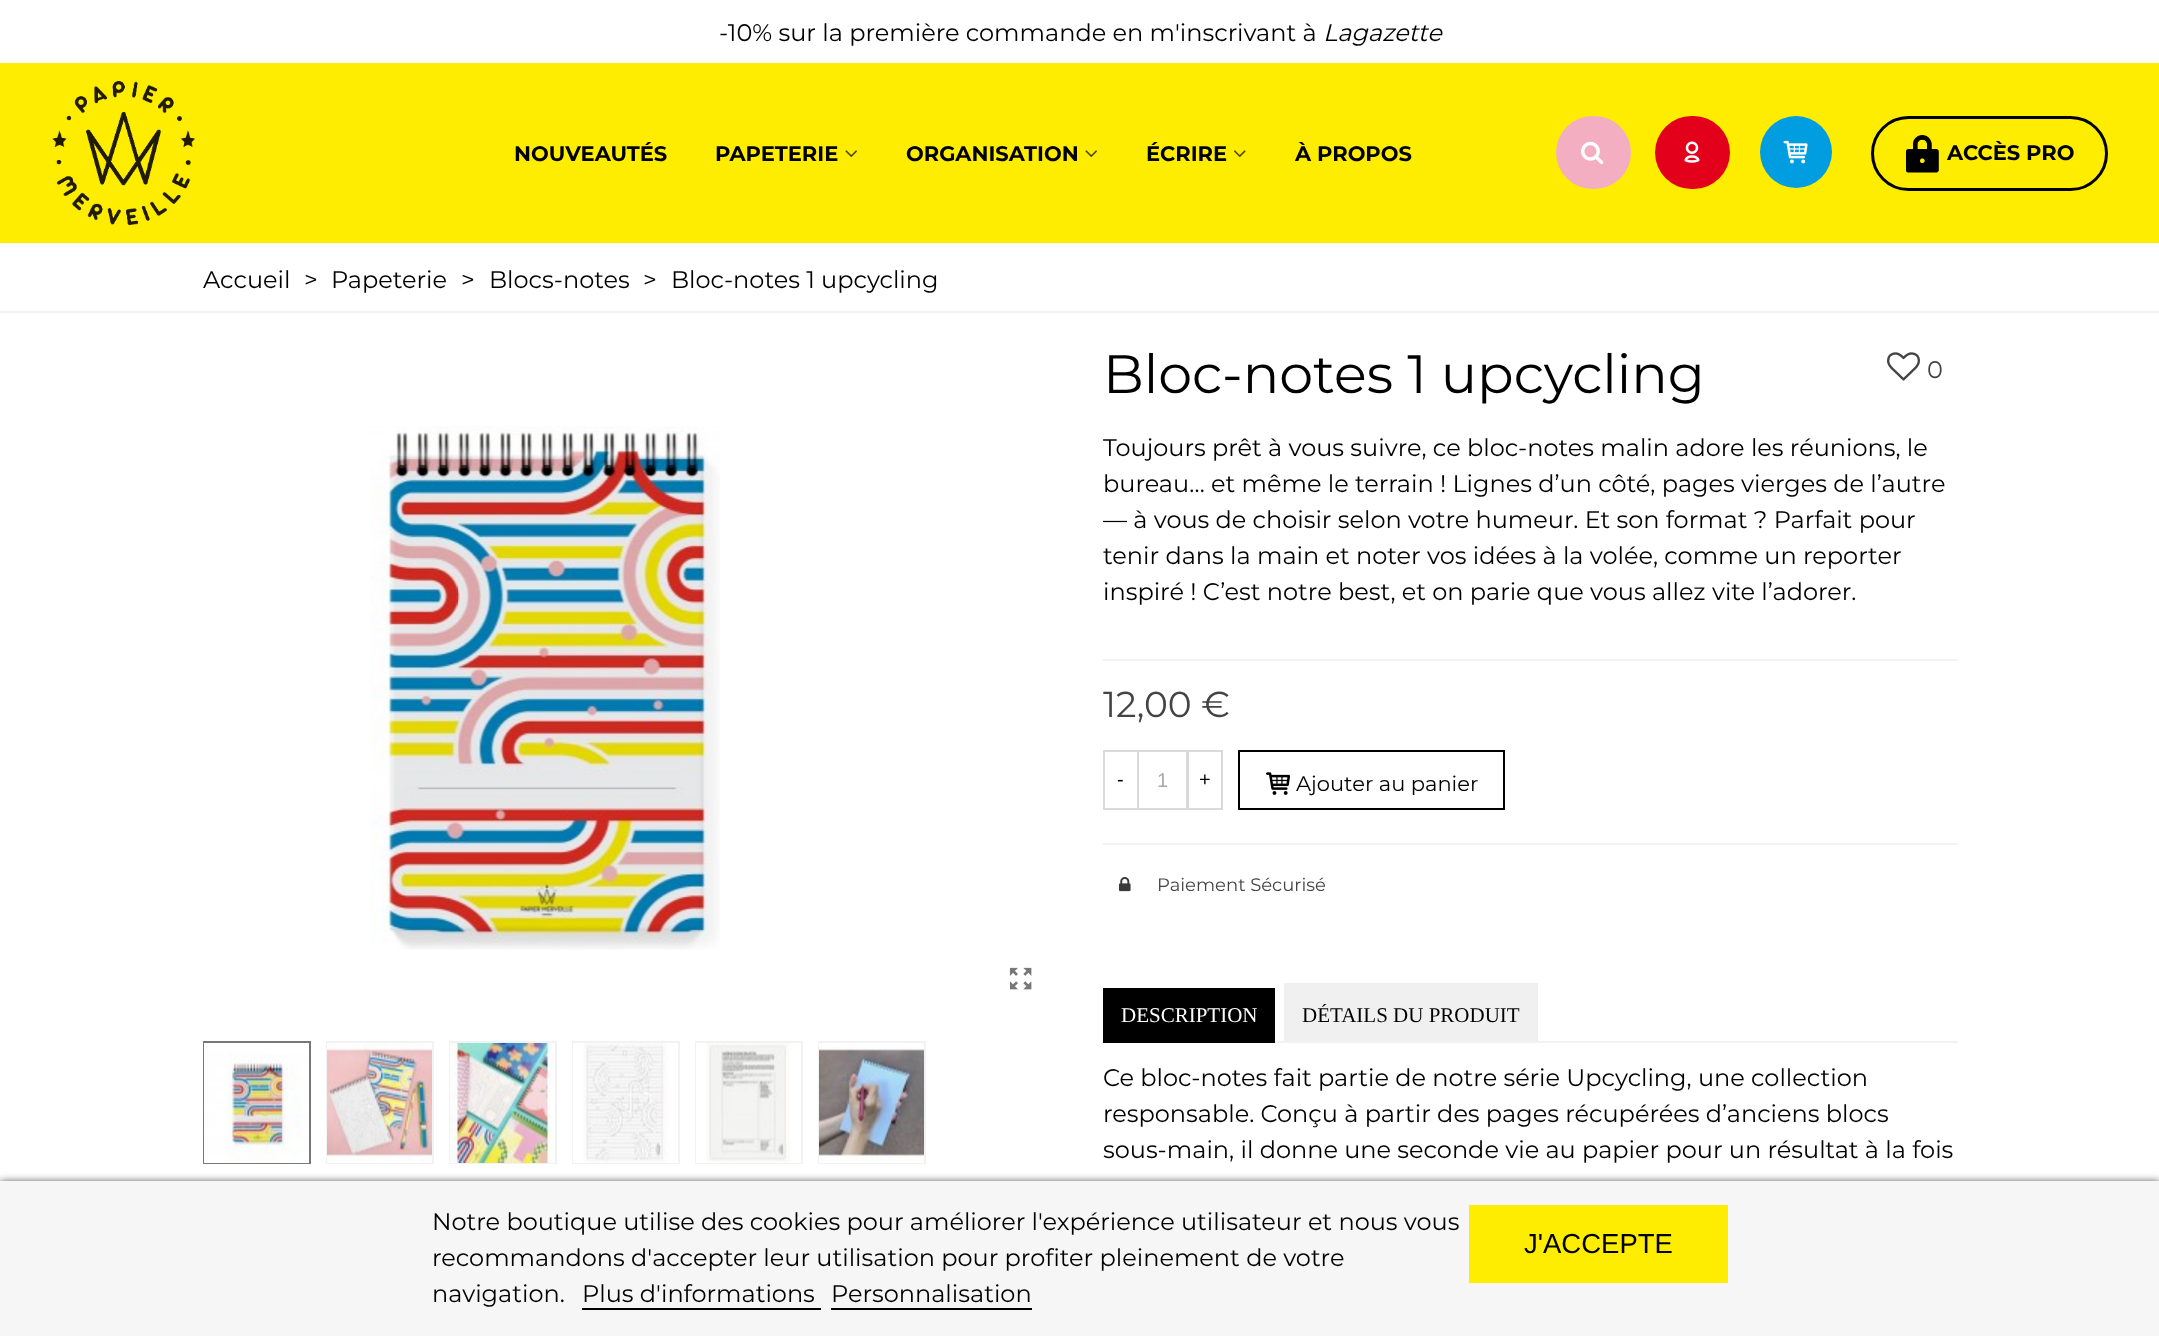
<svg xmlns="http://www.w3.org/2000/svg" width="2159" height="1336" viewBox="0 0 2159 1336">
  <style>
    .t1 { font: 24px Montserrat; fill: #000; }
    .t2 { font: italic 24px Montserrat; fill: #000; }
    .t3 { font: bold 21px Montserrat; fill: #000; }
    .t4 { font: 54px Montserrat; fill: #000; }
    .t5 { font: 24px Montserrat; fill: #444; }
    .t6 { font: 36px Montserrat; fill: #444; }
    .t7 { font: 20px Liberation Sans; fill: #000; }
    .t8 { font: 20px Liberation Sans; fill: #acaaa6; }
    .t9 { font: 21px Montserrat; fill: #000; }
    .t10 { font: 18px Montserrat; fill: #444; }
    .t11 { font: 21px Liberation Serif; fill: #fff; }
    .t12 { font: 21px Liberation Serif; fill: #000; }
    .t13 { font: 27.5px Liberation Sans; fill: #000; }
  </style>
  <rect width="100%" height="100%" fill="#fff"/>
  <rect x="0" y="63" width="2159" height="180" fill="#ffed00"/>
  <text x="719" y="41" class="t1">-10% sur la première commande en m'inscrivant à</text>
  <text x="1323" y="41" class="t2">Lagazette</text>
  <image x="52" y="81" width="143" height="144" href="images/1.png"/>
  <text x="514" y="161" class="t3">NOUVEAUTÉS</text>
  <text x="715" y="161" class="t3">PAPETERIE</text>
  <image x="845" y="150" width="12" height="8" href="images/2.png"/>
  <text x="906" y="161" class="t3">ORGANISATION</text>
  <image x="1085" y="150" width="12" height="8" href="images/2.png"/>
  <text x="1146" y="161" class="t3">ÉCRIRE</text>
  <image x="1234" y="150" width="12" height="8" href="images/3.png"/>
  <text x="1295" y="161" class="t3">À PROPOS</text>
  <rect x="1556" y="116" width="75" height="73" rx="36.5" fill="#f3aec2"/>
  <image x="1581" y="141" width="23" height="23" href="images/4.png"/>
  <rect x="1655" y="116" width="75" height="73" rx="36.5" fill="#e2001a"/>
  <image x="1684" y="141" width="16" height="22" href="images/5.png"/>
  <circle cx="1796" cy="152" r="36" fill="#009ee0"/>
  <image x="1783" y="140" width="25" height="24" href="images/6.png"/>
  <rect x="1872.5" y="117.5" width="234" height="72" rx="36" fill="none" stroke="#000" stroke-width="3"/>
  <image x="1906" y="135" width="33" height="38" href="images/7.png"/>
  <text x="1947" y="160" class="t3">ACCÈS PRO</text>
  <rect x="0" y="311" width="2159" height="2" fill="#f2f2f2"/>
  <text x="203" y="288" class="t1">Accueil</text>
  <text x="304" y="288" class="t1">&gt;</text>
  <text x="331" y="288" class="t1">Papeterie</text>
  <text x="461" y="288" class="t1">&gt;</text>
  <text x="489" y="288" class="t1">Blocs-notes</text>
  <text x="643" y="288" class="t1">&gt;</text>
  <text x="671" y="288" class="t1">Bloc-notes 1 upcycling</text>
  <image x="370" y="426" width="350" height="524" href="images/8.png"/>
  <image x="1009" y="967" width="23" height="23" href="images/9.png"/>
  <rect x="204" y="1042" width="106" height="121" fill="none" stroke="#777" stroke-width="2"/>
  <image x="204" y="1043" width="105" height="120" href="images/10.png"/>
  <rect x="327" y="1042" width="106" height="121" fill="none" stroke="#f2f2f2" stroke-width="2"/>
  <image x="327" y="1043" width="105" height="120" href="images/11.png"/>
  <rect x="450" y="1042" width="106" height="121" fill="none" stroke="#f2f2f2" stroke-width="2"/>
  <image x="450" y="1043" width="105" height="120" href="images/12.png"/>
  <rect x="573" y="1042" width="106" height="121" fill="none" stroke="#f2f2f2" stroke-width="2"/>
  <image x="573" y="1043" width="105" height="120" href="images/13.png"/>
  <rect x="696" y="1042" width="106" height="121" fill="none" stroke="#f2f2f2" stroke-width="2"/>
  <image x="696" y="1043" width="105" height="120" href="images/14.png"/>
  <rect x="819" y="1042" width="106" height="121" fill="none" stroke="#f2f2f2" stroke-width="2"/>
  <image x="819" y="1043" width="105" height="120" href="images/15.png"/>
  <text x="1103" y="393" class="t4">Bloc-notes 1 upcycling</text>
  <image x="1887" y="352" width="33" height="29" href="images/16.png"/>
  <text x="1927" y="378" class="t5">0</text>
  <text x="1103" y="456" class="t1">Toujours prêt à vous suivre, ce bloc-notes malin adore les réunions, le</text>
  <text x="1103" y="492" class="t1">bureau… et même le terrain ! Lignes d’un côté, pages vierges de l’autre</text>
  <text x="1103" y="528" class="t1">— à vous de choisir selon votre humeur. Et son format ? Parfait pour</text>
  <text x="1103" y="564" class="t1">tenir dans la main et noter vos idées à la volée, comme un reporter</text>
  <text x="1103" y="600" class="t1">inspiré ! C’est notre best, et on parie que vous allez vite l’adorer.</text>
  <rect x="1103" y="659" width="855" height="2" fill="#f2f2f2"/>
  <text x="1103" y="717" class="t6">12,00 €</text>
  <rect x="1104" y="751" width="34" height="58" fill="none" stroke="#d9d9d9" stroke-width="2"/>
  <text x="1117" y="786" class="t7">-</text>
  <rect x="1138" y="751" width="49" height="58" fill="none" stroke="#d9d9d9" stroke-width="2"/>
  <text x="1157" y="787" class="t8">1</text>
  <rect x="1188" y="751" width="34" height="58" fill="none" stroke="#d9d9d9" stroke-width="2"/>
  <text x="1199" y="786" class="t7">+</text>
  <rect x="1239" y="751" width="265" height="58" fill="none" stroke="#000" stroke-width="2"/>
  <image x="1266" y="772" width="25" height="23" href="images/17.png"/>
  <text x="1296" y="791" class="t9">Ajouter au panier</text>
  <rect x="1103" y="843" width="855" height="2" fill="#f2f2f2"/>
  <image x="1119" y="877" width="12" height="15" href="images/18.png"/>
  <text x="1157" y="891" class="t10">Paiement Sécurisé</text>
  <rect x="1275" y="1041" width="683" height="2" fill="#f2f2f2"/>
  <rect x="1103" y="988" width="172" height="55" fill="#000"/>
  <text x="1121" y="1022" class="t11">DESCRIPTION</text>
  <rect x="1284" y="983" width="254" height="58" fill="#f0f0f0"/>
  <text x="1302" y="1022" class="t12">DÉTAILS DU PRODUIT</text>
  <text x="1103" y="1086" class="t1">Ce bloc-notes fait partie de notre série Upcycling, une collection</text>
  <text x="1103" y="1122" class="t1">responsable. Conçu à partir des pages récupérées d’anciens blocs</text>
  <text x="1103" y="1158" class="t1">sous-main, il donne une seconde vie au papier pour un résultat à la fois</text>
  <rect x="0" y="1182" width="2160" height="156" fill="#3b3b3b" filter="blur(4px)"/>
  <rect x="0" y="1181" width="2159" height="155" fill="#f6f6f6"/>
  <text x="432" y="1230" class="t1">Notre boutique utilise des cookies pour améliorer l'expérience utilisateur et nous vous</text>
  <text x="432" y="1266" class="t1">recommandons d'accepter leur utilisation pour profiter pleinement de votre</text>
  <text x="432" y="1302" class="t1">navigation.</text>
  <text x="582" y="1302" class="t1">Plus d'informations</text>
  <rect x="582" y="1308" width="239" height="2" fill="#000"/>
  <text x="831" y="1302" class="t1">Personnalisation</text>
  <rect x="831" y="1308" width="201" height="2" fill="#000"/>
  <rect x="1469" y="1205" width="259" height="78" fill="#ffed00"/>
  <text x="1524" y="1253" class="t13">J'ACCEPTE</text>
</svg>
